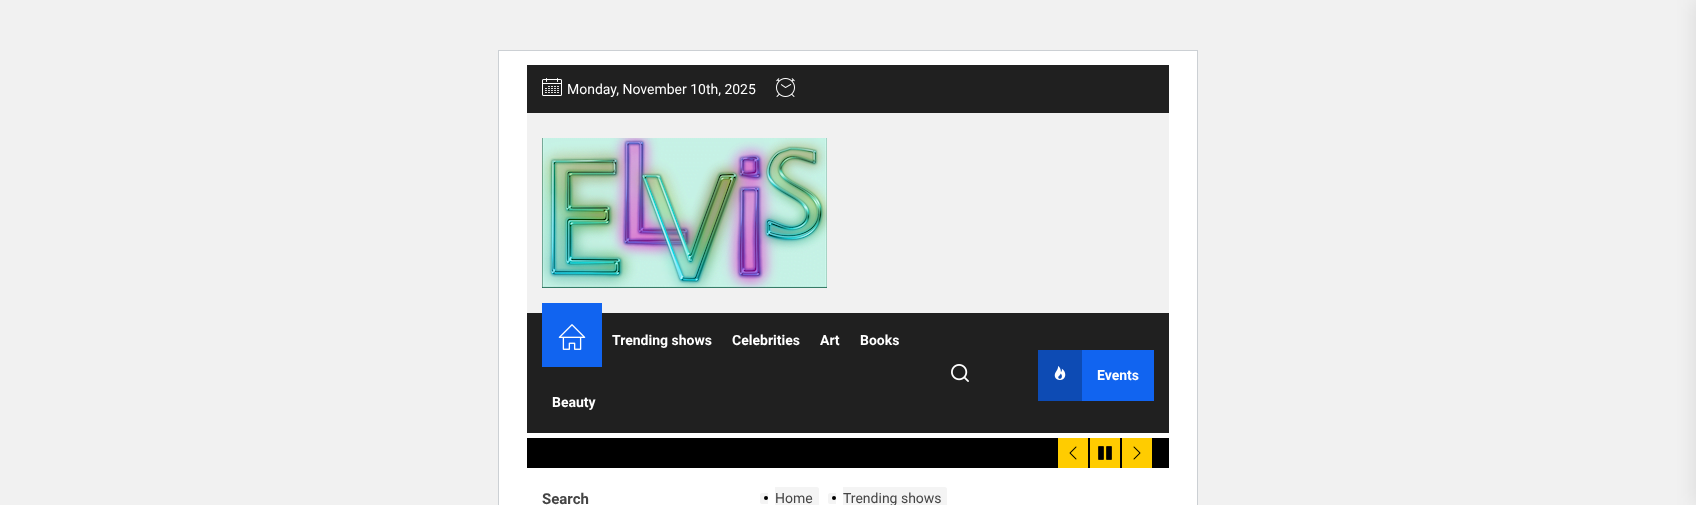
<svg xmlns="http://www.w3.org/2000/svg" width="1696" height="505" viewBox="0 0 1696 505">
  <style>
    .t1 { font: 14px Roboto; fill: #fff; }
    .t2 { font: bold 14px Roboto; fill: #fff; }
    .t3 { font: bold 15px Roboto; fill: #444; }
    .t4 { font: 14px Roboto; fill: #444; }
  </style>
  <rect width="100%" height="100%" fill="#f1f1f1"/>
  <rect x="498.5" y="50.5" width="699" height="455" fill="#fff" stroke="#ccd0d4"/>
  <rect x="527" y="65" width="642" height="48" fill="#202020"/>
  <image x="542" y="78" width="20" height="18" href="images/1.png"/>
  <text x="567" y="94" class="t1">Monday, November 10th, 2025</text>
  <image x="776" y="78" width="19" height="19" href="images/2.png"/>
  <rect x="527" y="113" width="642" height="200" fill="#f1f1f1"/>
  <image x="542" y="138" width="285" height="150" href="images/3.png"/>
  <rect x="527" y="313" width="642" height="120" fill="#202020"/>
  <rect x="542" y="303" width="60" height="64" fill="#1164f0"/>
  <image x="558" y="324" width="28" height="26" href="images/4.png"/>
  <text x="612" y="345" class="t2">Trending shows</text>
  <text x="732" y="345" class="t2">Celebrities</text>
  <text x="820" y="345" class="t2">Art</text>
  <text x="860" y="345" class="t2">Books</text>
  <text x="552" y="407" class="t2">Beauty</text>
  <image x="951" y="364" width="18" height="18" href="images/5.png"/>
  <rect x="1082" y="350" width="72" height="51" fill="#1164f0"/>
  <rect x="1038" y="350" width="44" height="51" fill="#0d4bb4"/>
  <image x="1054" y="366" width="12" height="14" href="images/6.png"/>
  <text x="1097" y="380" class="t2">Events</text>
  <rect x="527" y="438" width="642" height="30" fill="#000"/>
  <rect x="1058" y="438" width="30" height="30" fill="#fc0"/>
  <image x="1069" y="446" width="8" height="14" href="images/7.png"/>
  <rect x="1090" y="438" width="30" height="30" fill="#fc0"/>
  <image x="1098" y="446" width="14" height="14" href="images/8.png"/>
  <rect x="1122" y="438" width="30" height="30" fill="#fc0"/>
  <image x="1133" y="446" width="8" height="14" href="images/9.png"/>
  <rect x="1696" y="0" width="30" height="505" fill="#0000001a" filter="blur(10px)"/>
  <text x="542" y="504" class="t3">Search</text>
  <path d="M762 493H768V504H762C761 504 760 503 760 502V495C760 494 761 493 762 493Z" fill="#f4f4f4"/>
  <path d="M775 487H817C818 487 819 488 819 489V505C819 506 818 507 817 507H775Z" fill="#f4f4f4"/>
  <circle cx="766" cy="498" r="2" fill="#000"/>
  <text x="775" y="503" class="t4">Home</text>
  <path d="M830 493H836V504H830C829 504 828 503 828 502V495C828 494 829 493 830 493Z" fill="#f4f4f4"/>
  <path d="M843 487H945C946 487 947 488 947 489V505C947 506 946 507 945 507H843Z" fill="#f4f4f4"/>
  <circle cx="834" cy="498" r="2" fill="#000"/>
  <text x="843" y="503" class="t4">Trending shows</text>
</svg>
